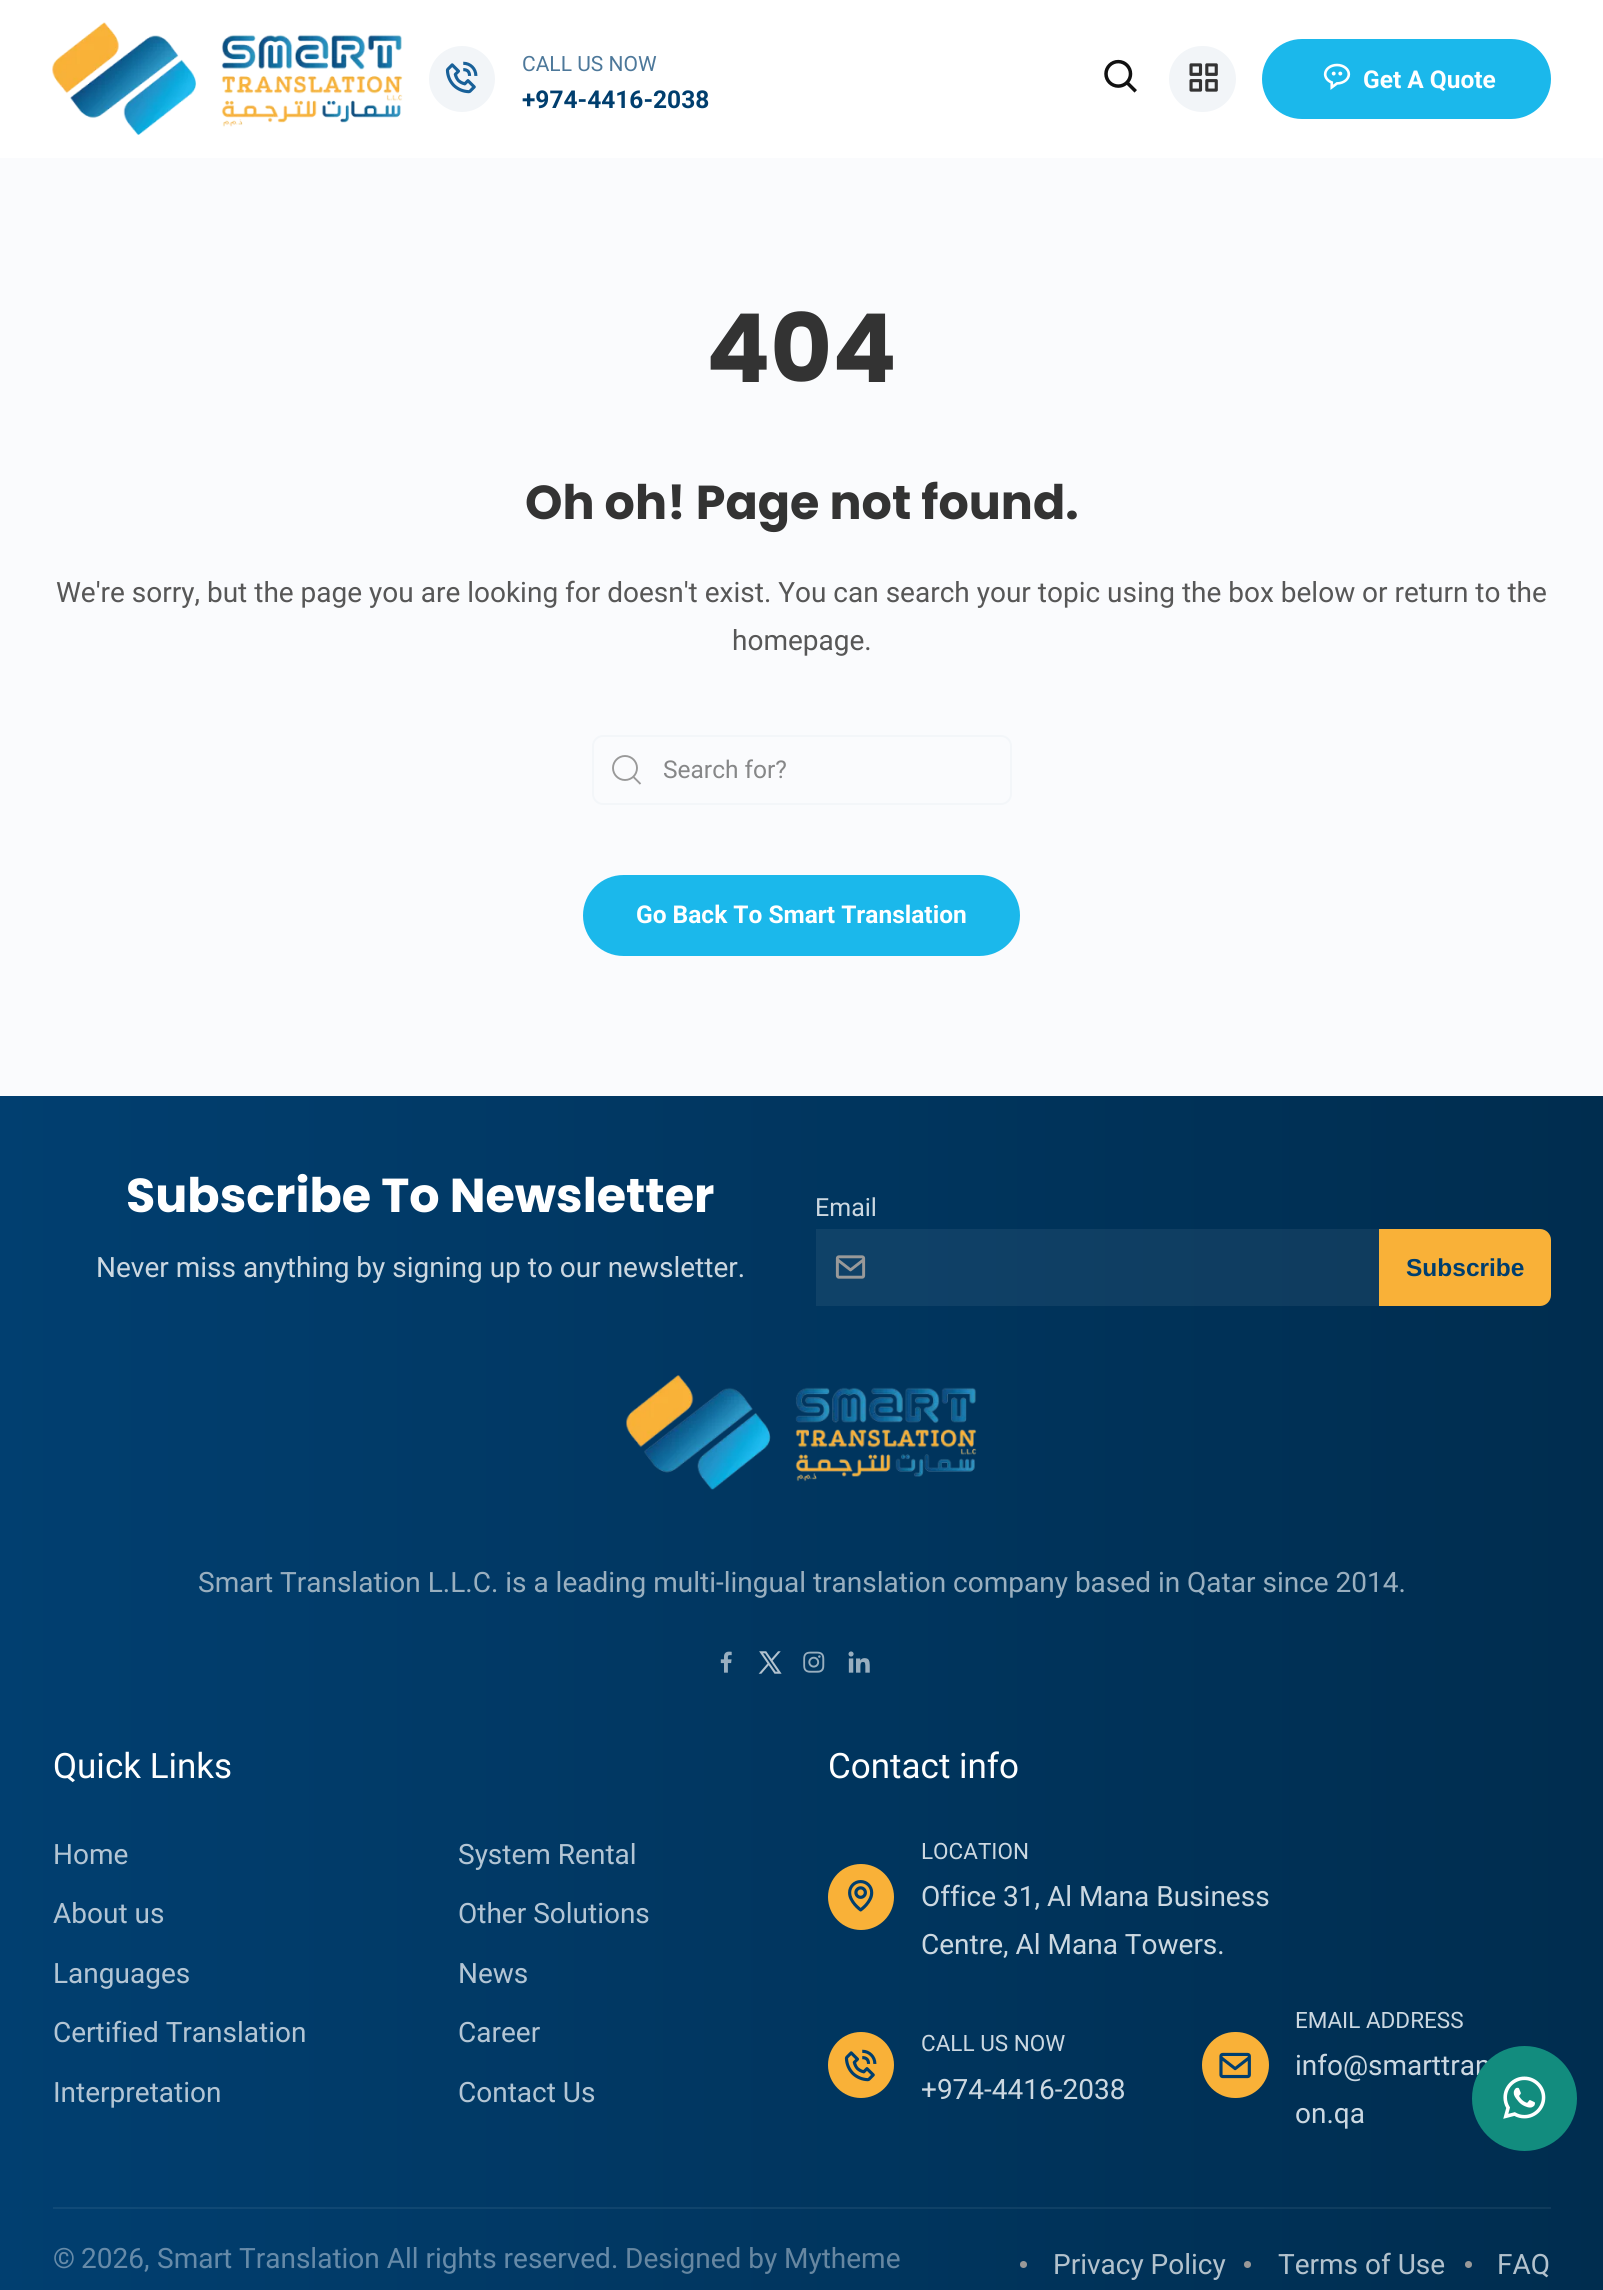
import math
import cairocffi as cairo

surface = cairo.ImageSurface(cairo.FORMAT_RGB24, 1603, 2290)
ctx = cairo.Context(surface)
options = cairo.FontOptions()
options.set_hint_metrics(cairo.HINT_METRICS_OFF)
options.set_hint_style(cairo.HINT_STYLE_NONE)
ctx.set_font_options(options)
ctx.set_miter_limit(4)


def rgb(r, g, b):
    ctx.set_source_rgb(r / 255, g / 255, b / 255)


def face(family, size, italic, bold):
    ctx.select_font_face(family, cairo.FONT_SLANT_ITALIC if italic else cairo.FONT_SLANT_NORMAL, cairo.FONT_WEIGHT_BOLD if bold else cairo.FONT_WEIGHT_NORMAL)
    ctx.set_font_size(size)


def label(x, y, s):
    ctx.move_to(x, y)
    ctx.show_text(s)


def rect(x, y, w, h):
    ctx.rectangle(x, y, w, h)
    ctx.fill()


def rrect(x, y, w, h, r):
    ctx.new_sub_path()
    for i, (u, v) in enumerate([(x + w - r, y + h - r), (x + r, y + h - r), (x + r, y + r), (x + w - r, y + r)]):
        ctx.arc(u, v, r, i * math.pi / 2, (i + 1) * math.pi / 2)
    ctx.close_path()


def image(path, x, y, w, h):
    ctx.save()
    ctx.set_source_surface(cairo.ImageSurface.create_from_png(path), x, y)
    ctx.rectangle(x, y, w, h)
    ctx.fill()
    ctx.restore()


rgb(250, 251, 253)
ctx.paint()
rgb(255, 255, 255)
rect(0, 0, 1603, 158)
image('image0.png', 52, 22, 351, 113)
rgb(242, 245, 248)
ctx.arc(462, 79, 33, 0, 2 * math.pi)
ctx.fill()
image('image1.png', 445, 61, 33, 33)
face('Roboto', 21, 0, 0)
rgb(77, 120, 154)
label(522, 71, 'CALL US NOW')
face('Roboto', 24.5, 0, 1)
rgb(0, 62, 110)
label(522, 108, '+974-4416-2038')
image('image2.png', 1104, 59, 33, 34)
rgb(242, 245, 248)
rrect(1169, 46, 67, 66, 33)
ctx.fill()
image('image3.png', 1189, 63, 29, 29)
rgb(27, 184, 235)
rrect(1262, 39, 289, 80, 40)
ctx.fill()
image('image4.png', 1323, 63, 28, 27)
rgb(255, 255, 255)
label(1363, 88, 'Get A Quote')
face('Poppins', 95, 0, 1)
rgb(51, 51, 51)
label(706, 382, '404')
face('Poppins', 47.6, 0, 1)
label(525, 519, 'Oh oh! Page not found.')
face('Roboto', 28, 0, 0)
rgb(87, 87, 87)
label(56, 602, 'We\'re sorry, but the page you are looking for doesn\'t exist. You can search your topic using the box below or return to the')
label(732, 650, 'homepage.')
rrect(593, 736, 418, 68, 10)
rgb(243, 246, 249)
ctx.stroke()
ctx.arc(625, 768, 12, 0, 2 * math.pi)
rgb(153, 153, 153)
ctx.set_line_width(1.9)
ctx.stroke()
ctx.new_path()
ctx.move_to(633.5, 777)
ctx.line_to(640.5, 784)
ctx.close_path()
ctx.stroke()
face('Roboto', 24.5, 0, 0)
rgb(134, 135, 136)
label(663, 778, 'Search for?')
rgb(27, 184, 235)
rrect(583, 875, 437, 81, 40.5)
ctx.fill()
face('Roboto', 24.5, 0, 1)
rgb(255, 255, 255)
label(636, 923, 'Go Back To Smart Translation')
gradient = cairo.LinearGradient(0, 1704, 1603, 1704)
gradient.add_color_stop_rgba(0, 0.004, 0.247, 0.439, 1)
gradient.add_color_stop_rgba(1, 0, 0.176, 0.31, 1)
ctx.set_source(gradient)
rect(0, 1096, 1603, 1194)
gradient = cairo.LinearGradient(0, 1704, 1603, 1704)
gradient.add_color_stop_rgba(0, 0.063, 0.294, 0.475, 1)
gradient.add_color_stop_rgba(1, 0.059, 0.227, 0.353, 1)
ctx.set_source(gradient)
rect(53, 2207, 1498, 2)
face('Poppins', 47.6, 0, 1)
rgb(255, 255, 255)
label(126, 1212, 'Subscribe To Newsletter')
face('Roboto', 28, 0, 0)
rgb(204, 216, 225)
label(96, 1277, 'Never miss anything by signing up to our newsletter.')
face('Roboto', 25, 0, 0)
label(815, 1216, 'Email')
ctx.set_source_rgba(1, 1, 1, 0.06)
rect(816, 1229, 563, 77)
image('image5.png', 835, 1255, 31, 24)
rgb(249, 177, 56)
ctx.new_path()
ctx.move_to(1379, 1229)
ctx.line_to(1540, 1229)
ctx.curve_to(1546, 1229, 1551, 1234, 1551, 1240)
ctx.line_to(1551, 1295)
ctx.curve_to(1551, 1301, 1546, 1306, 1540, 1306)
ctx.line_to(1379, 1306)
ctx.close_path()
ctx.fill()
face('Liberation Sans', 24.5, 0, 1)
rgb(0, 62, 110)
label(1406, 1276, 'Subscribe')
image('image6.png', 626, 1375, 351, 115)
face('Roboto', 28, 0, 0)
rgb(153, 175, 191)
label(198, 1592, 'Smart Translation L.L.C. is a leading multi-lingual translation company based in Qatar since 2014.')
image('image7.png', 720, 1651, 12, 22)
image('image8.png', 758, 1651, 24, 23)
image('image9.png', 803, 1651, 22, 22)
image('image10.png', 848, 1651, 22, 22)
face('Roboto', 35, 0, 0)
rgb(255, 255, 255)
label(53, 1778, 'Quick Links')
face('Roboto', 28, 0, 0)
rgb(179, 197, 212)
label(53, 1864, 'Home')
label(458, 1864, 'System Rental')
label(53, 1923, 'About us')
label(458, 1923, 'Other Solutions')
label(53, 1983, 'Languages')
label(458, 1983, 'News')
label(53, 2042, 'Certified Translation')
label(458, 2042, 'Career')
label(53, 2102, 'Interpretation')
label(458, 2102, 'Contact Us')
face('Roboto', 35, 0, 0)
rgb(255, 255, 255)
label(828, 1778, 'Contact info')
rgb(249, 177, 56)
ctx.new_path()
ctx.arc(861, 1897, 33, 0, 2 * math.pi)
ctx.fill()
image('image11.png', 848, 1880, 26, 32)
face('Roboto', 22.5, 0, 0)
rgb(204, 216, 225)
label(921, 1859, 'LOCATION')
face('Roboto', 28, 0, 0)
label(921, 1906, 'Office 31, Al Mana Business')
label(921, 1954, 'Centre, Al Mana Towers.')
rgb(249, 177, 56)
ctx.new_path()
ctx.arc(861, 2065, 33, 0, 2 * math.pi)
ctx.fill()
image('image12.png', 844, 2049, 33, 33)
face('Roboto', 22.5, 0, 0)
rgb(204, 216, 225)
label(921, 2051, 'CALL US NOW')
face('Roboto', 28, 0, 0)
label(921, 2099, '+974-4416-2038')
rgb(249, 177, 56)
rrect(1202, 2032, 67, 66, 33)
ctx.fill()
image('image13.png', 1219, 2052, 32, 27)
face('Roboto', 22.5, 0, 0)
rgb(204, 216, 225)
label(1295, 2028, 'EMAIL ADDRESS')
face('Roboto', 28, 0, 0)
label(1295, 2075, 'info@smarttran')
label(1295, 2123, 'on.qa')
rgb(103, 139, 169)
label(53, 2268, '©')
label(81, 2268, '2026,')
label(157, 2268, 'Smart Translation All rights reserved.')
rgb(103, 135, 161)
label(625, 2268, 'Designed by')
label(784, 2268, 'Mytheme')
rgb(153, 153, 153)
ctx.new_path()
ctx.arc(1023.5, 2264.5, 3.5, 0, 2 * math.pi)
ctx.fill()
rgb(179, 194, 205)
label(1053, 2274, 'Privacy Policy')
rgb(153, 153, 153)
ctx.new_path()
ctx.arc(1247.5, 2264.5, 3.5, 0, 2 * math.pi)
ctx.fill()
rgb(179, 194, 205)
label(1278, 2274, 'Terms of Use')
rgb(153, 153, 153)
ctx.new_path()
ctx.arc(1468.5, 2264.5, 3.5, 0, 2 * math.pi)
ctx.fill()
rgb(179, 194, 205)
label(1497, 2274, 'FAQ')
rgb(18, 140, 126)
ctx.new_path()
ctx.arc(1524.5, 2098.5, 52.5, 0, 2 * math.pi)
ctx.fill()
image('image14.png', 1503, 2076, 43, 43)
surface.write_to_png('render.png')
